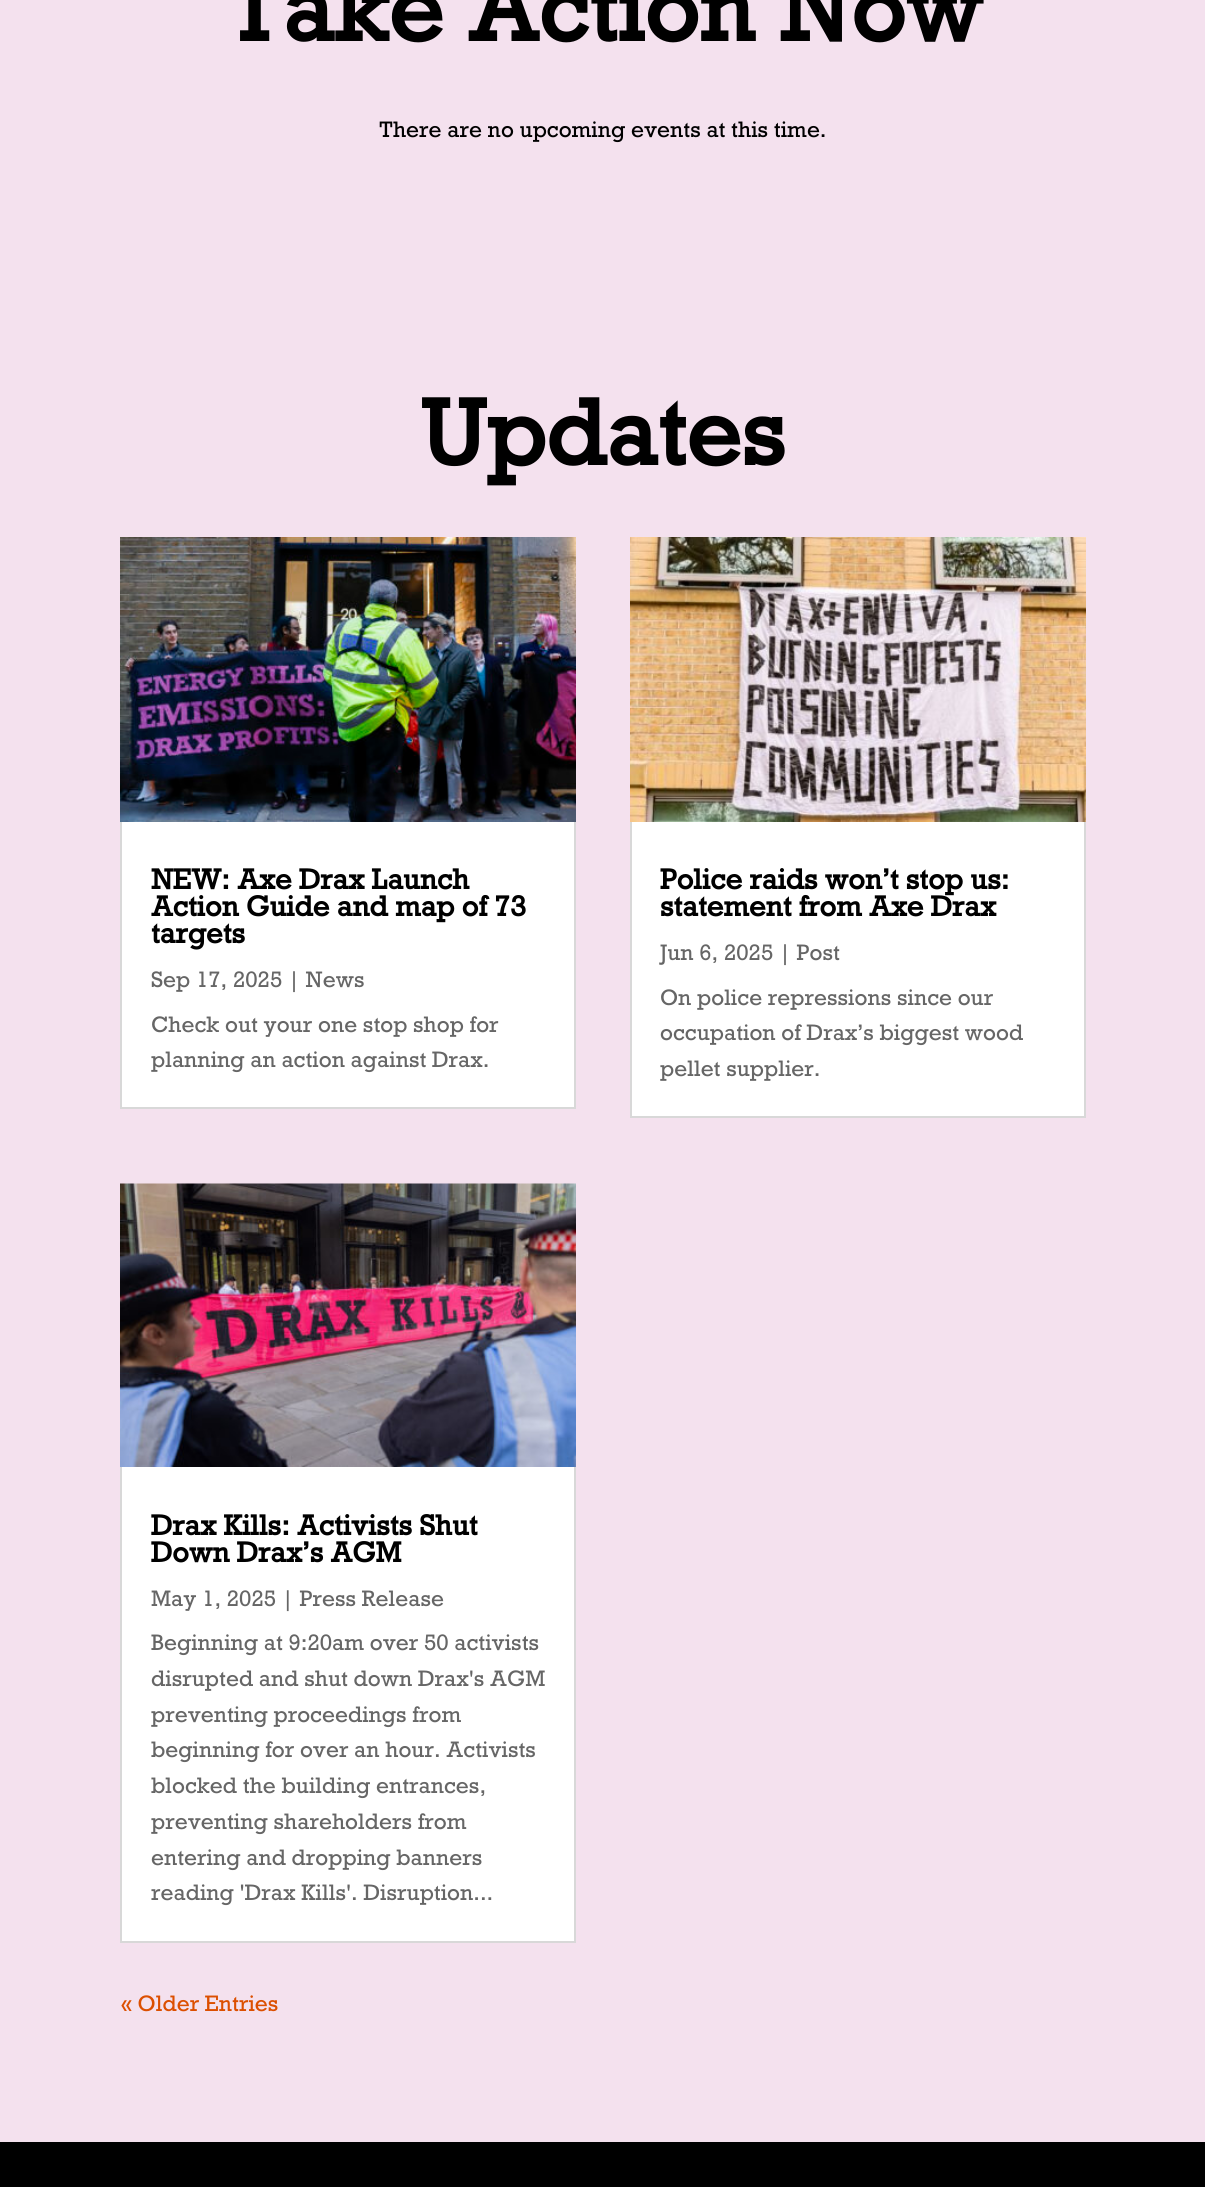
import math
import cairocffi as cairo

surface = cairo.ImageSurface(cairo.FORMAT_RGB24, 1205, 2187)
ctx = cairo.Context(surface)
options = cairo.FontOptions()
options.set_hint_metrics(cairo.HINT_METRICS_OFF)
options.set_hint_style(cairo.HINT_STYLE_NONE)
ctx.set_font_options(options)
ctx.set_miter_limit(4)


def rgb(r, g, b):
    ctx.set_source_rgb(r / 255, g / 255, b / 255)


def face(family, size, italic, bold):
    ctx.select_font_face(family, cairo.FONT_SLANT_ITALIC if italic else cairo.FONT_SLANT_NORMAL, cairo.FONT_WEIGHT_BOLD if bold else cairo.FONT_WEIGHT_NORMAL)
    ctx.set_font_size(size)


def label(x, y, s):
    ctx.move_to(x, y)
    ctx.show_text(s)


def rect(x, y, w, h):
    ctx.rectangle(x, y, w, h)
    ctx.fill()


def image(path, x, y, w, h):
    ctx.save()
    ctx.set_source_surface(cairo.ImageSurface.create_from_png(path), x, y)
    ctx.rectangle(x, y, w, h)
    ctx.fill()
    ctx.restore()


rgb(244, 225, 238)
ctx.paint()
face('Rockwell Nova', 88.5, 0, 1)
rgb(0, 0, 0)
label(224, 41, 'Take Action Now')
face('Rockwell Nova', 21, 0, 0)
label(379, 137, 'There are no upcoming events at this time.')
face('Rockwell Nova', 88.5, 0, 1)
label(420, 465, 'Updates')
rgb(255, 255, 255)
rect(122, 822, 452, 285)
ctx.rectangle(121, 538, 454, 570)
rgb(216, 216, 216)
ctx.stroke()
image('image0.png', 120, 537, 456, 285)
face('Rockwell Nova', 27, 0, 1)
rgb(0, 0, 0)
label(151, 889, 'NEW: Axe Drax Launch')
label(151, 916, 'Action Guide and map of 73')
label(151, 943, 'targets')
face('Rockwell Nova', 21, 0, 0)
rgb(102, 102, 102)
label(151, 987, 'Sep 17, 2025 | News')
label(151, 1032, 'Check out your one stop shop for')
label(151, 1067, 'planning an action against Drax.')
rgb(255, 255, 255)
rect(122, 1467, 452, 474)
ctx.rectangle(121, 1185, 454, 757)
rgb(216, 216, 216)
ctx.stroke()
image('image1.png', 120, 1183, 456, 284)
face('Rockwell Nova', 27, 0, 1)
rgb(0, 0, 0)
label(151, 1535, 'Drax Kills: Activists Shut')
label(151, 1562, 'Down Drax’s AGM')
face('Rockwell Nova', 21, 0, 0)
rgb(102, 102, 102)
label(151, 1606, 'May 1, 2025 | Press Release')
label(151, 1650, 'Beginning at 9:20am over 50 activists')
label(151, 1686, 'disrupted and shut down Drax\'s AGM')
label(151, 1722, 'preventing proceedings from')
label(151, 1757, 'beginning for over an hour. Activists')
label(151, 1793, 'blocked the building entrances,')
label(151, 1829, 'preventing shareholders from')
label(151, 1865, 'entering and dropping banners')
label(151, 1900, 'reading \'Drax Kills\'. Disruption...')
rgb(255, 255, 255)
rect(632, 822, 452, 294)
ctx.rectangle(631, 538, 454, 579)
rgb(216, 216, 216)
ctx.stroke()
image('image2.png', 630, 537, 456, 285)
face('Rockwell Nova', 27, 0, 1)
rgb(0, 0, 0)
label(660, 889, 'Police raids won’t stop us:')
label(660, 916, 'statement from Axe Drax')
face('Rockwell Nova', 21, 0, 0)
rgb(102, 102, 102)
label(660, 960, 'Jun 6, 2025 | Post')
label(660, 1005, 'On police repressions since our')
label(660, 1040, 'occupation of Drax’s biggest wood')
label(660, 1076, 'pellet supplier.')
rgb(220, 79, 0)
label(121, 2011, '« Older Entries')
rgb(0, 0, 0)
rect(0, 2142, 1205, 45)
surface.write_to_png('render.png')
